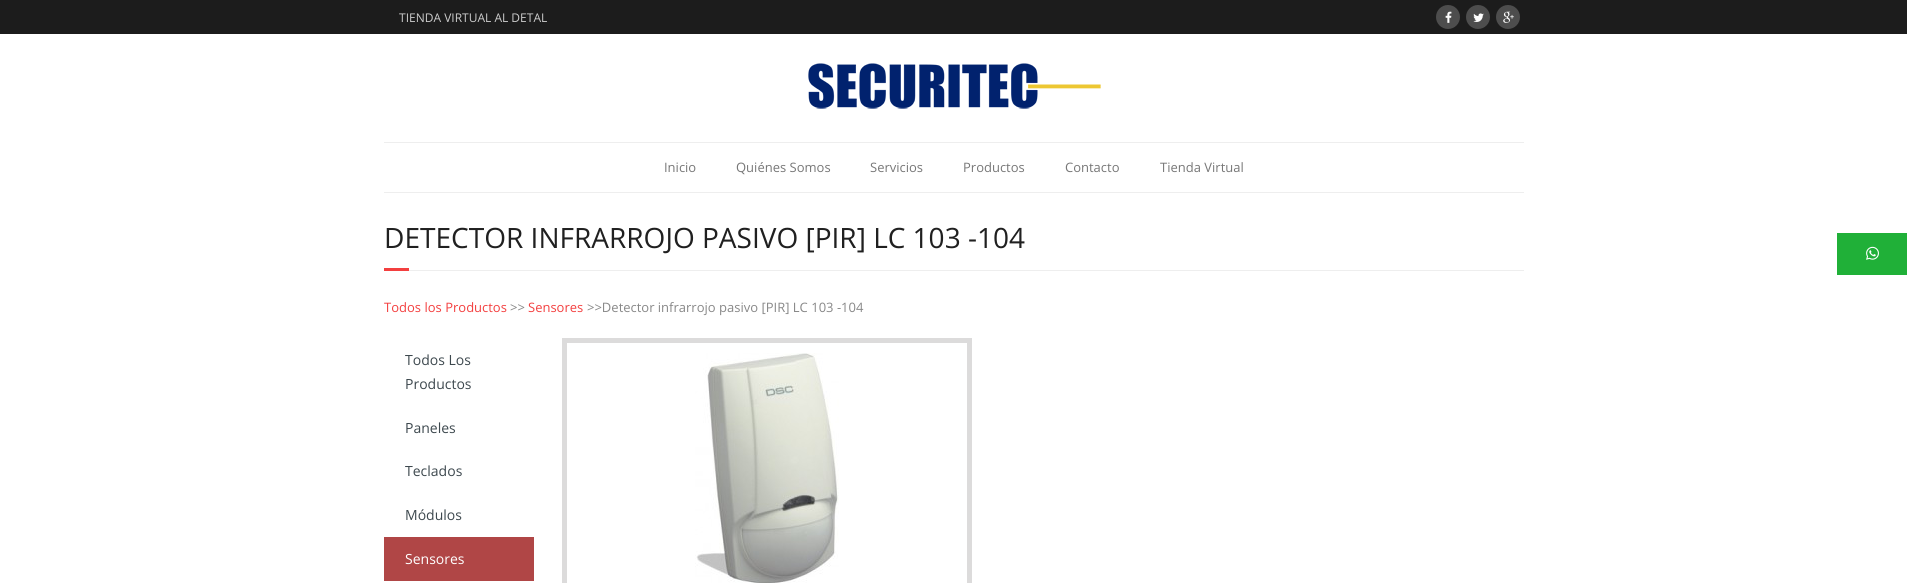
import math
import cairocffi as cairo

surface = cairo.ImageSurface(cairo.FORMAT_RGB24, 1907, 583)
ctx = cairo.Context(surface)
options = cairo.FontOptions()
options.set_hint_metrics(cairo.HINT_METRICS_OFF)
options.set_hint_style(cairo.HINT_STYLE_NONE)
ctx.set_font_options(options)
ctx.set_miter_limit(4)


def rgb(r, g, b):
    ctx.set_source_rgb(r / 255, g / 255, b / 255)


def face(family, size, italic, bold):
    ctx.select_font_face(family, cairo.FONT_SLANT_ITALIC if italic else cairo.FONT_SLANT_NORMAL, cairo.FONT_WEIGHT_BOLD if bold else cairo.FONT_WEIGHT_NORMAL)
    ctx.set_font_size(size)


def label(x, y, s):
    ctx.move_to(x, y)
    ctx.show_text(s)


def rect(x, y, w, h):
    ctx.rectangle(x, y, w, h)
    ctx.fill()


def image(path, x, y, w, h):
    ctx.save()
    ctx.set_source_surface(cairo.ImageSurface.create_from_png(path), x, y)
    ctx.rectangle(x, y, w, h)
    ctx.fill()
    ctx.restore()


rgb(255, 255, 255)
ctx.paint()
rgb(28, 28, 28)
rect(0, 0, 1907, 34)
face('Open Sans', 12, 0, 0)
rgb(204, 204, 204)
label(399, 22, 'TIENDA VIRTUAL AL DETAL')
rgb(77, 77, 77)
ctx.new_path()
ctx.arc(1448, 17, 12, 0, 2 * math.pi)
ctx.fill()
image('image0.png', 1445, 11, 7, 12)
ctx.arc(1478, 17, 12, 0, 2 * math.pi)
ctx.fill()
image('image1.png', 1473, 13, 11, 9)
ctx.arc(1508, 17, 12, 0, 2 * math.pi)
ctx.fill()
image('image2.png', 1503, 11, 11, 12)
image('image3.png', 808, 63, 293, 46)
rgb(238, 238, 238)
rect(384, 142, 1140, 1)
rect(384, 192, 1140, 1)
face('Open Sans', 13, 0, 0)
rgb(119, 119, 119)
label(664, 172, 'Inicio')
label(736, 172, 'Quiénes Somos')
label(870, 172, 'Servicios')
label(963, 172, 'Productos')
label(1065, 172, 'Contacto')
label(1160, 172, 'Tienda Virtual')
face('Open Sans', 28, 0, 0)
rgb(32, 32, 32)
label(384, 248, 'DETECTOR INFRARROJO PASIVO [PIR] LC 103 -104')
rgb(243, 63, 63)
rect(384, 268, 25, 3)
rgb(238, 238, 238)
rect(409, 270, 1115, 1)
face('Open Sans', 13, 0, 0)
rgb(243, 63, 63)
label(384, 312, 'Todos los Productos')
rgb(136, 136, 136)
label(510, 312, '>>')
rgb(243, 63, 63)
label(528, 312, 'Sensores')
rgb(136, 136, 136)
label(587, 312, '>>Detector infrarrojo pasivo [PIR] LC 103 -104')
face('Open Sans', 14, 0, 0)
rgb(61, 72, 78)
label(405, 365, 'Todos Los')
label(405, 389, 'Productos')
label(405, 433, 'Paneles')
label(405, 476, 'Teclados')
label(405, 520, 'Módulos')
rgb(176, 70, 70)
rect(384, 537, 150, 44)
rgb(255, 255, 255)
label(405, 564, 'Sensores')
ctx.rectangle(564.5, 340.5, 405, 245)
rgb(220, 219, 219)
ctx.set_line_width(5)
ctx.stroke()
image('image4.png', 695, 353, 144, 230)
rgb(32, 176, 56)
rect(1837, 233, 70, 42)
image('image5.png', 1866, 246, 13, 14)
surface.write_to_png('render.png')
